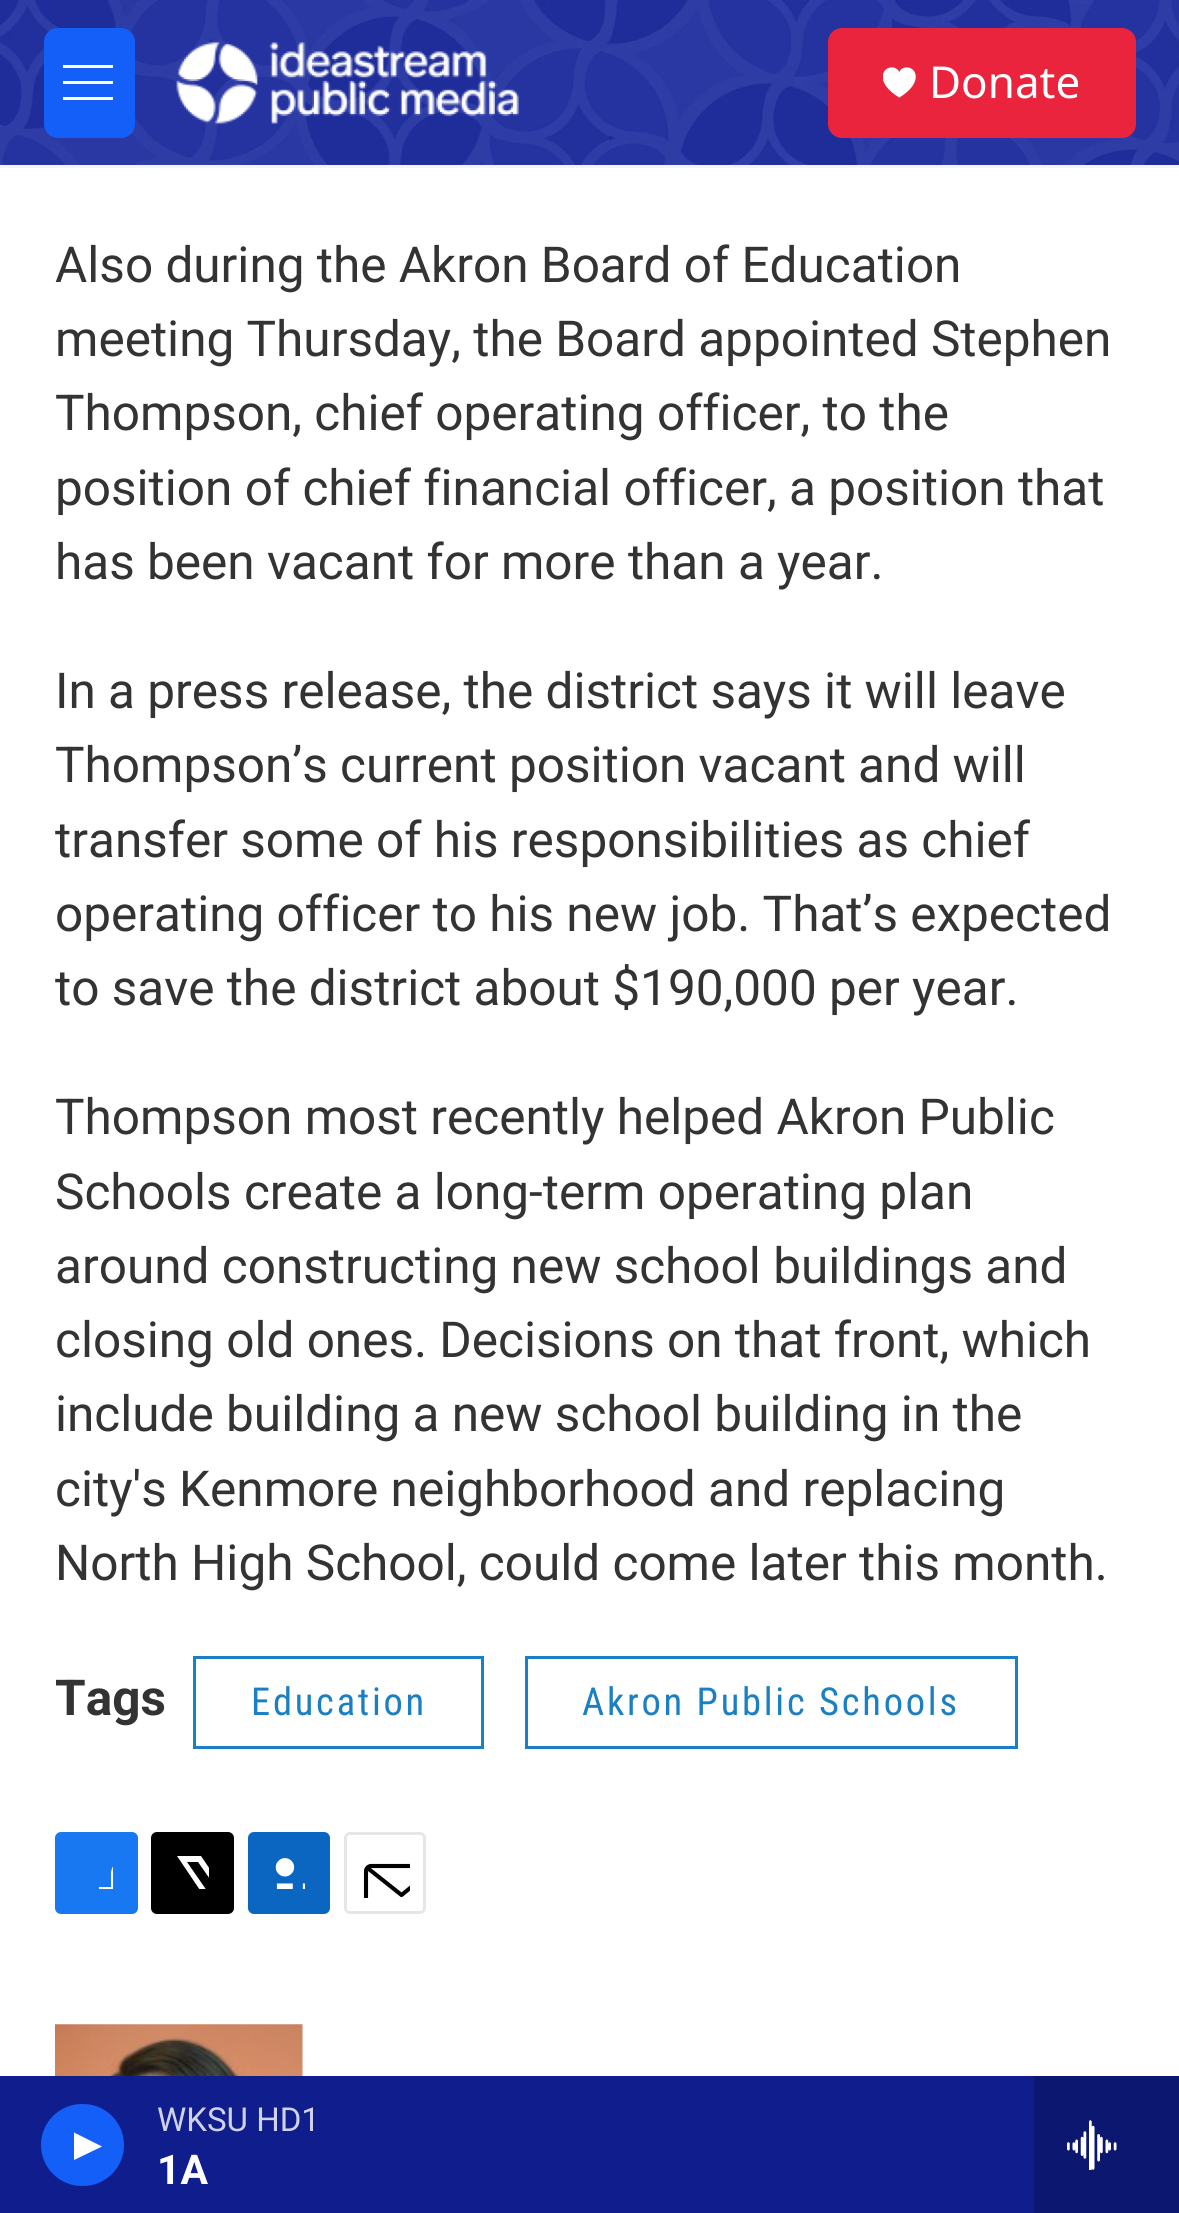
import math
import cairocffi as cairo

surface = cairo.ImageSurface(cairo.FORMAT_RGB24, 1179, 2213)
ctx = cairo.Context(surface)
options = cairo.FontOptions()
options.set_hint_metrics(cairo.HINT_METRICS_OFF)
options.set_hint_style(cairo.HINT_STYLE_NONE)
ctx.set_font_options(options)
ctx.set_miter_limit(4)


def rgb(r, g, b):
    ctx.set_source_rgb(r / 255, g / 255, b / 255)


def face(family, size, italic, bold):
    ctx.select_font_face(family, cairo.FONT_SLANT_ITALIC if italic else cairo.FONT_SLANT_NORMAL, cairo.FONT_WEIGHT_BOLD if bold else cairo.FONT_WEIGHT_NORMAL)
    ctx.set_font_size(size)


def label(x, y, s):
    ctx.move_to(x, y)
    ctx.show_text(s)


def tracked(x, y, s, letter, word):
    ctx.move_to(x, y)
    for ch in s:
        ctx.show_text(ch)
        ctx.rel_move_to(letter + word * (ch == ' '), 0)


def rect(x, y, w, h):
    ctx.rectangle(x, y, w, h)
    ctx.fill()


def rrect(x, y, w, h, r):
    ctx.new_sub_path()
    for i, (u, v) in enumerate([(x + w - r, y + h - r), (x + r, y + h - r), (x + r, y + r), (x + w - r, y + r)]):
        ctx.arc(u, v, r, i * math.pi / 2, (i + 1) * math.pi / 2)
    ctx.close_path()


def image(path, x, y, w, h):
    ctx.save()
    ctx.set_source_surface(cairo.ImageSurface.create_from_png(path), x, y)
    ctx.rectangle(x, y, w, h)
    ctx.fill()
    ctx.restore()


rgb(255, 255, 255)
ctx.paint()
rgb(245, 245, 245)
rect(0, 165, 1179, 3)
image('image0.png', 0, 0, 1179, 165)
rgb(20, 95, 248)
rrect(44, 28, 91, 110, 14)
ctx.fill()
rgb(255, 255, 255)
ctx.set_fill_rule(cairo.FILL_RULE_EVEN_ODD)
ctx.new_path()
ctx.move_to(63, 84)
ctx.line_to(63, 81)
ctx.line_to(113, 81)
ctx.line_to(113, 84)
ctx.close_path()
ctx.move_to(63, 68)
ctx.line_to(63, 65)
ctx.line_to(113, 65)
ctx.line_to(113, 68)
ctx.close_path()
ctx.move_to(63, 100)
ctx.line_to(63, 97)
ctx.line_to(113, 97)
ctx.line_to(113, 100)
ctx.close_path()
ctx.fill()
image('image1.png', 176, 42, 343, 83)
rgb(234, 36, 60)
rrect(828, 28, 308, 110, 14)
ctx.fill()
image('image2.png', 883, 67, 33, 31)
face('Noto Sans', 44, 0, 0)
rgb(255, 255, 255)
label(929, 98, 'Donate')
rgb(15, 30, 140)
rect(0, 2076, 1034, 137)
rgb(20, 95, 248)
rrect(41, 2104, 83, 82, 41)
ctx.fill()
rgb(255, 255, 255)
ctx.set_fill_rule(cairo.FILL_RULE_WINDING)
ctx.new_path()
ctx.move_to(74, 2132.5)
ctx.line_to(102, 2146.5)
ctx.line_to(74, 2160)
ctx.close_path()
ctx.fill()
face('Roboto', 33, 0, 0)
rgb(207, 210, 232)
label(157, 2131, 'WKSU HD1')
face('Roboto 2', 41, 0, 1)
rgb(255, 255, 255)
label(157, 2184, '1A')
rgb(12, 24, 112)
rect(1034, 2076, 145, 137)
image('image3.png', 1067, 2120, 50, 50)
face('Roboto', 49.5, 0, 0)
rgb(51, 51, 51)
label(55, 282, 'Also during the Akron Board of Education')
label(55, 356, 'meeting Thursday, the Board appointed Stephen')
label(55, 430, 'Thompson, chief operating officer, to the')
label(55, 505, 'position of chief financial officer, a position that')
label(55, 579, 'has been vacant for more than a year.')
label(55, 708, 'In a press release, the district says it will leave')
label(55, 782, 'Thompson’s current position vacant and will')
label(55, 857, 'transfer some of his responsibilities as chief')
label(55, 931, 'operating officer to his new job. That’s expected')
label(55, 1005, 'to save the district about $190,000 per year.')
label(55, 1134, 'Thompson most recently helped Akron Public')
label(55, 1209, 'Schools create a long-term operating plan')
label(55, 1283, 'around constructing new school buildings and')
label(55, 1357, 'closing old ones. Decisions on that front, which')
label(55, 1431, 'include building a new school building in the')
label(55, 1506, 'city\'s Kenmore neighborhood and replacing')
label(55, 1580, 'North High School, could come later this month.')
face('Roboto', 49.5, 0, 1)
label(55, 1715, 'Tags')
ctx.rectangle(194.5, 1657.5, 288, 90)
rgb(26, 127, 195)
ctx.set_line_width(3)
ctx.stroke()
face('Roboto Condensed', 38.5, 0, 0)
tracked(251, 1715, 'Education', 2.75, 0)
ctx.rectangle(526.5, 1657.5, 490, 90)
ctx.stroke()
tracked(582, 1715, 'Akron Public Schools', 2.75, 0)
rgb(23, 120, 242)
rrect(55, 1832, 83, 82, 6)
ctx.fill()
ctx.save()
ctx.rectangle(80, 1856, 33, 33)
ctx.clip()
rgb(255, 255, 255)
ctx.new_path()
ctx.move_to(125, 1914)
ctx.line_to(111, 1914)
ctx.line_to(111, 1901)
ctx.line_to(99, 1901)
ctx.line_to(99, 1887)
ctx.line_to(111, 1887)
ctx.line_to(111, 1872)
ctx.curve_to(114, 1858, 126, 1856, 138, 1858)
ctx.line_to(138, 1870)
ctx.curve_to(122, 1870, 125, 1874, 125, 1887)
ctx.line_to(138, 1887)
ctx.line_to(137, 1901)
ctx.line_to(125, 1901)
ctx.close_path()
ctx.fill()
ctx.restore()
rgb(0, 0, 0)
rrect(151, 1832, 83, 82, 6)
ctx.fill()
ctx.save()
ctx.rectangle(176, 1856, 33, 33)
ctx.clip()
rgb(255, 255, 255)
ctx.new_path()
ctx.move_to(225, 1891)
ctx.line_to(234, 1904)
ctx.curve_to(234, 1907, 234, 1910, 233, 1912)
ctx.line_to(198, 1862)
ctx.line_to(187, 1862)
ctx.line_to(223, 1914)
ctx.line_to(217, 1914)
ctx.line_to(212, 1907)
ctx.line_to(206, 1914)
ctx.line_to(198, 1914)
ctx.line_to(208, 1902)
ctx.line_to(177, 1856)
ctx.line_to(201, 1856)
ctx.line_to(222, 1887)
ctx.line_to(234, 1873)
ctx.line_to(234, 1880)
ctx.close_path()
ctx.fill()
ctx.restore()
rgb(10, 102, 193)
rrect(248, 1832, 82, 82, 6)
ctx.fill()
image('image4.png', 275, 1858, 30, 31)
rrect(345.5, 1833.5, 79, 79, 4.5)
rgb(230, 230, 230)
ctx.stroke()
ctx.save()
ctx.rectangle(360, 1848, 50, 50)
ctx.clip()
ctx.new_path()
ctx.move_to(437, 1908.5)
ctx.curve_to(437, 1911, 434.5, 1913.5, 432, 1913.5)
ctx.line_to(371, 1913.5)
ctx.curve_to(368.5, 1913.5, 366, 1911, 366, 1908.5)
ctx.line_to(366, 1871)
ctx.curve_to(366, 1868.5, 368.5, 1866, 371, 1866)
ctx.line_to(432, 1866)
ctx.curve_to(434.5, 1866, 437, 1868.5, 437, 1871)
ctx.close_path()
ctx.move_to(435, 1868)
ctx.line_to(401.5, 1895)
ctx.line_to(367.5, 1868)
rgb(0, 0, 0)
ctx.set_line_width(4.1)
ctx.set_line_cap(cairo.LINE_CAP_ROUND)
ctx.set_line_join(cairo.LINE_JOIN_ROUND)
ctx.stroke()
ctx.restore()
image('image5.png', 55, 2024, 248, 52)
surface.write_to_png('render.png')
